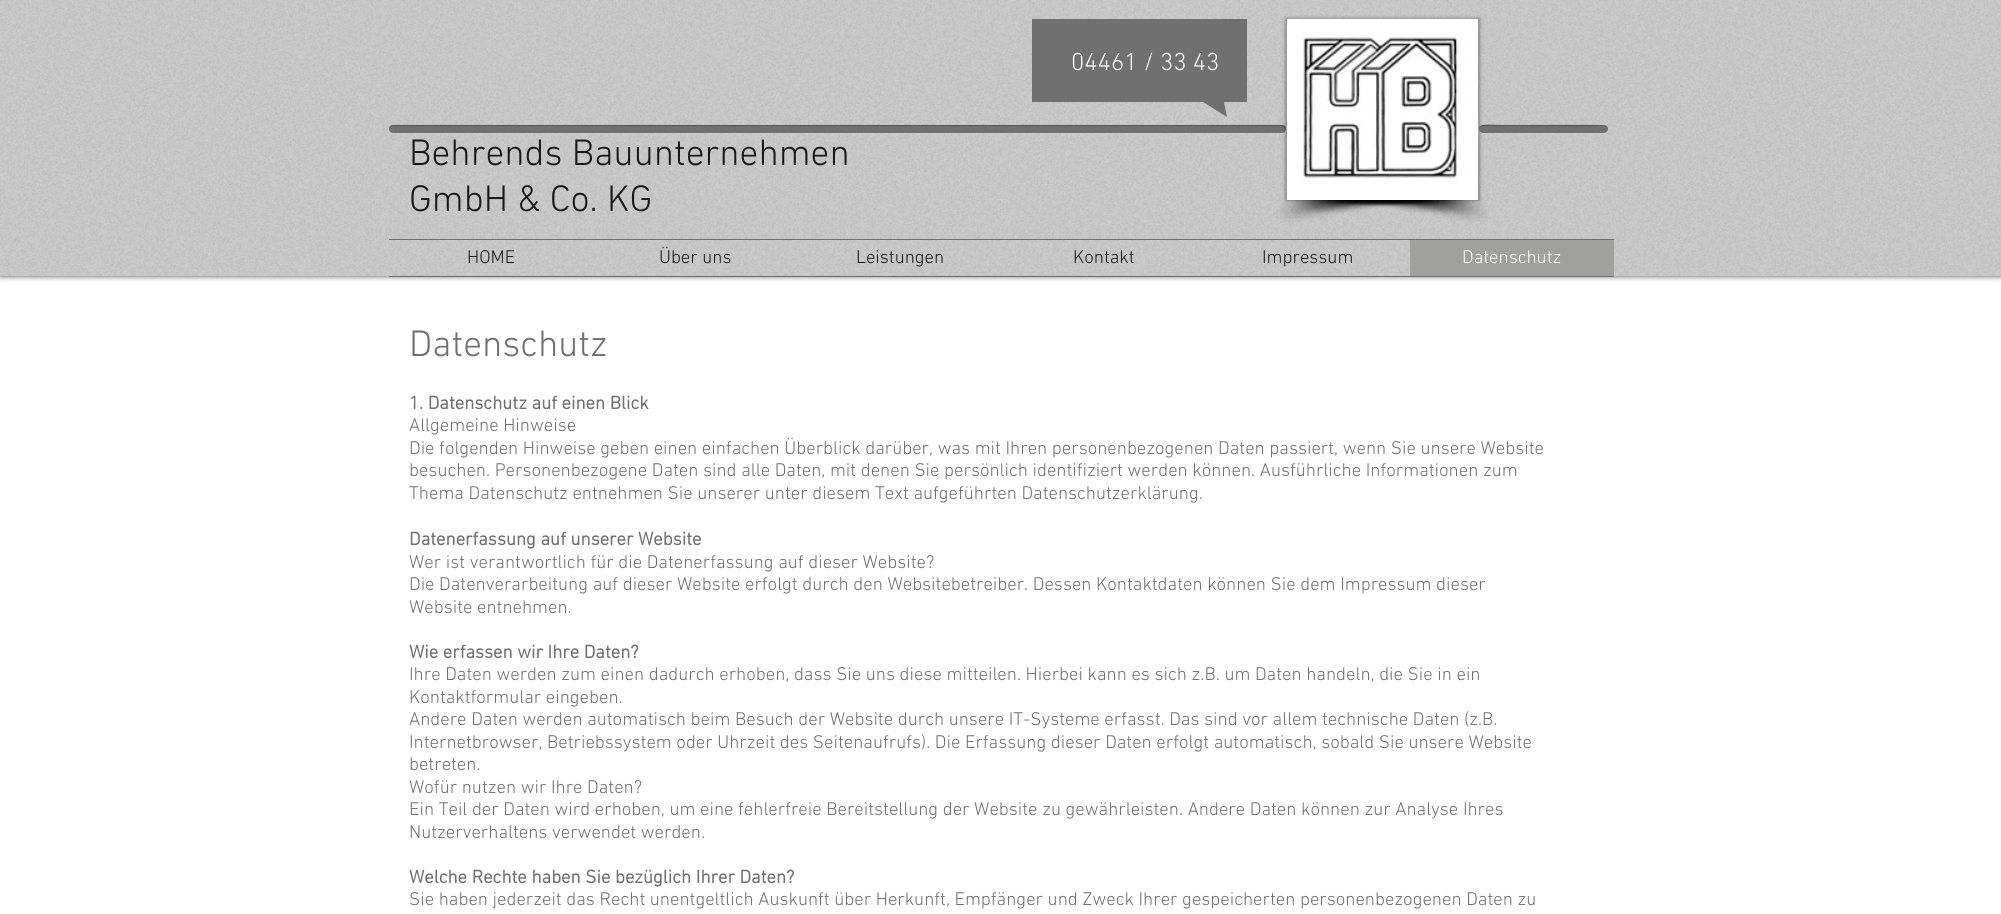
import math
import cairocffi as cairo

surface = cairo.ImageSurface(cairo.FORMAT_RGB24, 2001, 914)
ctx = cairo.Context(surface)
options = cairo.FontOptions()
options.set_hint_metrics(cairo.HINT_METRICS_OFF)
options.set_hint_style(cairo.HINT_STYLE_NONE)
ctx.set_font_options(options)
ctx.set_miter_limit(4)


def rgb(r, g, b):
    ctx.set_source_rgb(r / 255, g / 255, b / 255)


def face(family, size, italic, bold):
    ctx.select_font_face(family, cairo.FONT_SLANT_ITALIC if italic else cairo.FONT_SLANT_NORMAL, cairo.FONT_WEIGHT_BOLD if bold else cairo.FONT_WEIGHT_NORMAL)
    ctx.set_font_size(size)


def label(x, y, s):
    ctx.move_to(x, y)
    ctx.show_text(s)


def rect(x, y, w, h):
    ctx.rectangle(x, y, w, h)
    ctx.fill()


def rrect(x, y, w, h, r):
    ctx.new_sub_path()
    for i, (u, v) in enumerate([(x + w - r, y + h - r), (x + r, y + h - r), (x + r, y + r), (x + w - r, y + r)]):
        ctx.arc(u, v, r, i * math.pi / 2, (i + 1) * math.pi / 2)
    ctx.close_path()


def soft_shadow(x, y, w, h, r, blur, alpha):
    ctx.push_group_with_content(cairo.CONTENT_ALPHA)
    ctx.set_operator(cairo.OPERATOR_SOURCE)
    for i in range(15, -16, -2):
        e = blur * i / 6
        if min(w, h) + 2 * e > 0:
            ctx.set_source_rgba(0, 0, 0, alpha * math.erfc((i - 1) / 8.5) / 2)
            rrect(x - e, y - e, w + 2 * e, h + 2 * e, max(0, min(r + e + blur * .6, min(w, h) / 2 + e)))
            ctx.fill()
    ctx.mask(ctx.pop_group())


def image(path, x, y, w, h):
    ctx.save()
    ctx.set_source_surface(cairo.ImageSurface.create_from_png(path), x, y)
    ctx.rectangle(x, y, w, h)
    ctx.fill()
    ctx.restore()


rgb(255, 255, 255)
ctx.paint()
rgb(0, 0, 0)
soft_shadow(0, 0, 2001, 276, 0, 3, 0.7)
rgb(203, 203, 203)
rect(0, 0, 2001, 276)
image('image0.png', 0, 0, 2001, 276)
rgb(112, 112, 112)
ctx.new_path()
ctx.move_to(1247, 19)
ctx.line_to(1032, 19)
ctx.line_to(1032, 102)
ctx.line_to(1203, 102)
ctx.line_to(1227, 117)
ctx.line_to(1224, 102)
ctx.line_to(1247, 102)
ctx.close_path()
ctx.fill()
ctx.set_source_rgba(1, 1, 1, 0.1)
ctx.new_path()
ctx.move_to(389, 130)
ctx.curve_to(389, 132, 391, 134, 393, 134)
ctx.line_to(1282, 134)
ctx.curve_to(1284, 134, 1286, 132, 1286, 130)
ctx.curve_to(1285, 132, 1284, 132, 1282, 132)
ctx.line_to(392, 132)
ctx.curve_to(391, 132, 390, 132, 389, 130)
ctx.close_path()
ctx.fill()
rgb(112, 112, 112)
rrect(389, 125, 897, 8, 4)
ctx.fill()
ctx.set_source_rgba(0, 0, 0, 0.25)
ctx.new_path()
ctx.move_to(392, 126)
ctx.line_to(1282, 126)
ctx.curve_to(1284, 126, 1286, 128, 1286, 129)
ctx.line_to(1286, 128)
ctx.curve_to(1286, 126, 1284, 125, 1282, 125)
ctx.line_to(393, 125)
ctx.curve_to(391, 125, 390, 126, 389, 127)
ctx.line_to(389, 129)
ctx.curve_to(389, 128, 390, 126, 392, 126)
ctx.close_path()
ctx.fill()
rgb(0, 0, 0)
soft_shadow(1286, 19, 193, 181, 0, 2, 0.5)
rgb(23, 23, 23)
rect(1286, 19, 193, 181)
image('image1.png', 1286, 18, 193, 182)
image('image2.png', 1276, 200, 185, 22)
image('image3.png', 1320, 200, 169, 22)
face('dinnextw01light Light', 25, 0, 0)
rgb(255, 255, 255)
label(1071, 70, '04461 / 33 43')
ctx.set_source_rgba(1, 1, 1, 0.1)
ctx.new_path()
ctx.move_to(1479, 130)
ctx.line_to(1480, 133)
ctx.line_to(1483, 134)
ctx.line_to(1606, 134)
ctx.curve_to(1608, 133, 1609, 130, 1607, 128)
ctx.line_to(1607, 131)
ctx.curve_to(1606, 132, 1605, 132, 1604, 132)
ctx.line_to(1482, 132)
ctx.line_to(1480, 132)
ctx.close_path()
ctx.fill()
rgb(112, 112, 112)
rrect(1479, 125, 129, 8, 4)
ctx.fill()
ctx.set_source_rgba(0, 0, 0, 0.25)
ctx.new_path()
ctx.move_to(1482, 126)
ctx.line_to(1604, 126)
ctx.line_to(1607, 127)
ctx.line_to(1608, 130)
ctx.curve_to(1608, 128, 1607, 127, 1606, 126)
ctx.curve_to(1604, 124, 1532, 125, 1523, 125)
ctx.line_to(1503, 125)
ctx.curve_to(1493, 125, 1478, 122, 1479, 129)
ctx.curve_to(1479, 128, 1480, 126, 1482, 126)
ctx.close_path()
ctx.fill()
face('dinnextw01light Light', 37.5, 0, 0)
rgb(23, 23, 23)
label(409, 165, 'Behrends Bauunternehmen')
label(409, 211, 'GmbH & Co. KG')
rgb(112, 112, 112)
rect(389, 239, 1225, 1)
rect(389, 276, 1225, 1)
face('dinnextw01light Light', 18.75, 0, 0)
rgb(23, 23, 23)
label(467, 263, 'HOME')
label(659, 263, 'Über uns')
label(856, 263, 'Leistungen')
label(1073, 263, 'Kontakt')
label(1262, 263, 'Impressum')
rgb(160, 160, 159)
rect(1410, 240, 204, 36)
rgb(255, 255, 255)
label(1462, 263, 'Datenschutz')
face('dinnextw01light Light', 37.5, 0, 0)
rgb(112, 112, 112)
label(409, 356, 'Datenschutz')
face('dinnextw01light', 18.75, 0, 1)
label(409, 409, '1. Datenschutz auf einen Blick')
face('dinnextw01light Light', 18.75, 0, 0)
label(409, 431, 'Allgemeine Hinweise')
label(409, 454, 'Die folgenden Hinweise geben einen einfachen Überblick darüber, was mit Ihren personenbezogenen Daten passiert, wenn Sie unsere Website')
label(409, 476, 'besuchen. Personenbezogene Daten sind alle Daten, mit denen Sie persönlich identifiziert werden können. Ausführliche Informationen zum')
label(409, 499, 'Thema Datenschutz entnehmen Sie unserer unter diesem Text aufgeführten Datenschutzerklärung.')
face('dinnextw01light', 18.75, 0, 1)
label(409, 545, 'Datenerfassung auf unserer Website')
face('dinnextw01light Light', 18.75, 0, 0)
label(409, 568, 'Wer ist verantwortlich für die Datenerfassung auf dieser Website?')
label(409, 590, 'Die Datenverarbeitung auf dieser Website erfolgt durch den Websitebetreiber. Dessen Kontaktdaten können Sie dem Impressum dieser')
label(409, 613, 'Website entnehmen.')
face('dinnextw01light', 18.75, 0, 1)
label(409, 658, 'Wie erfassen wir Ihre Daten?')
face('dinnextw01light Light', 18.75, 0, 0)
label(409, 680, 'Ihre Daten werden zum einen dadurch erhoben, dass Sie uns diese mitteilen. Hierbei kann es sich z.B. um Daten handeln, die Sie in ein')
label(409, 703, 'Kontaktformular eingeben.')
label(409, 725, 'Andere Daten werden automatisch beim Besuch der Website durch unsere IT-Systeme erfasst. Das sind vor allem technische Daten (z.B.')
label(409, 748, 'Internetbrowser, Betriebssystem oder Uhrzeit des Seitenaufrufs). Die Erfassung dieser Daten erfolgt automatisch, sobald Sie unsere Website')
label(409, 770, 'betreten.')
label(409, 793, 'Wofür nutzen wir Ihre Daten?')
label(409, 815, 'Ein Teil der Daten wird erhoben, um eine fehlerfreie Bereitstellung der Website zu gewährleisten. Andere Daten können zur Analyse Ihres')
label(409, 838, 'Nutzerverhaltens verwendet werden.')
face('dinnextw01light', 18.75, 0, 1)
label(409, 883, 'Welche Rechte haben Sie bezüglich Ihrer Daten?')
face('dinnextw01light Light', 18.75, 0, 0)
label(409, 905, 'Sie haben jederzeit das Recht unentgeltlich Auskunft über Herkunft, Empfänger und Zweck Ihrer gespeicherten personenbezogenen Daten zu')
surface.write_to_png('render.png')
